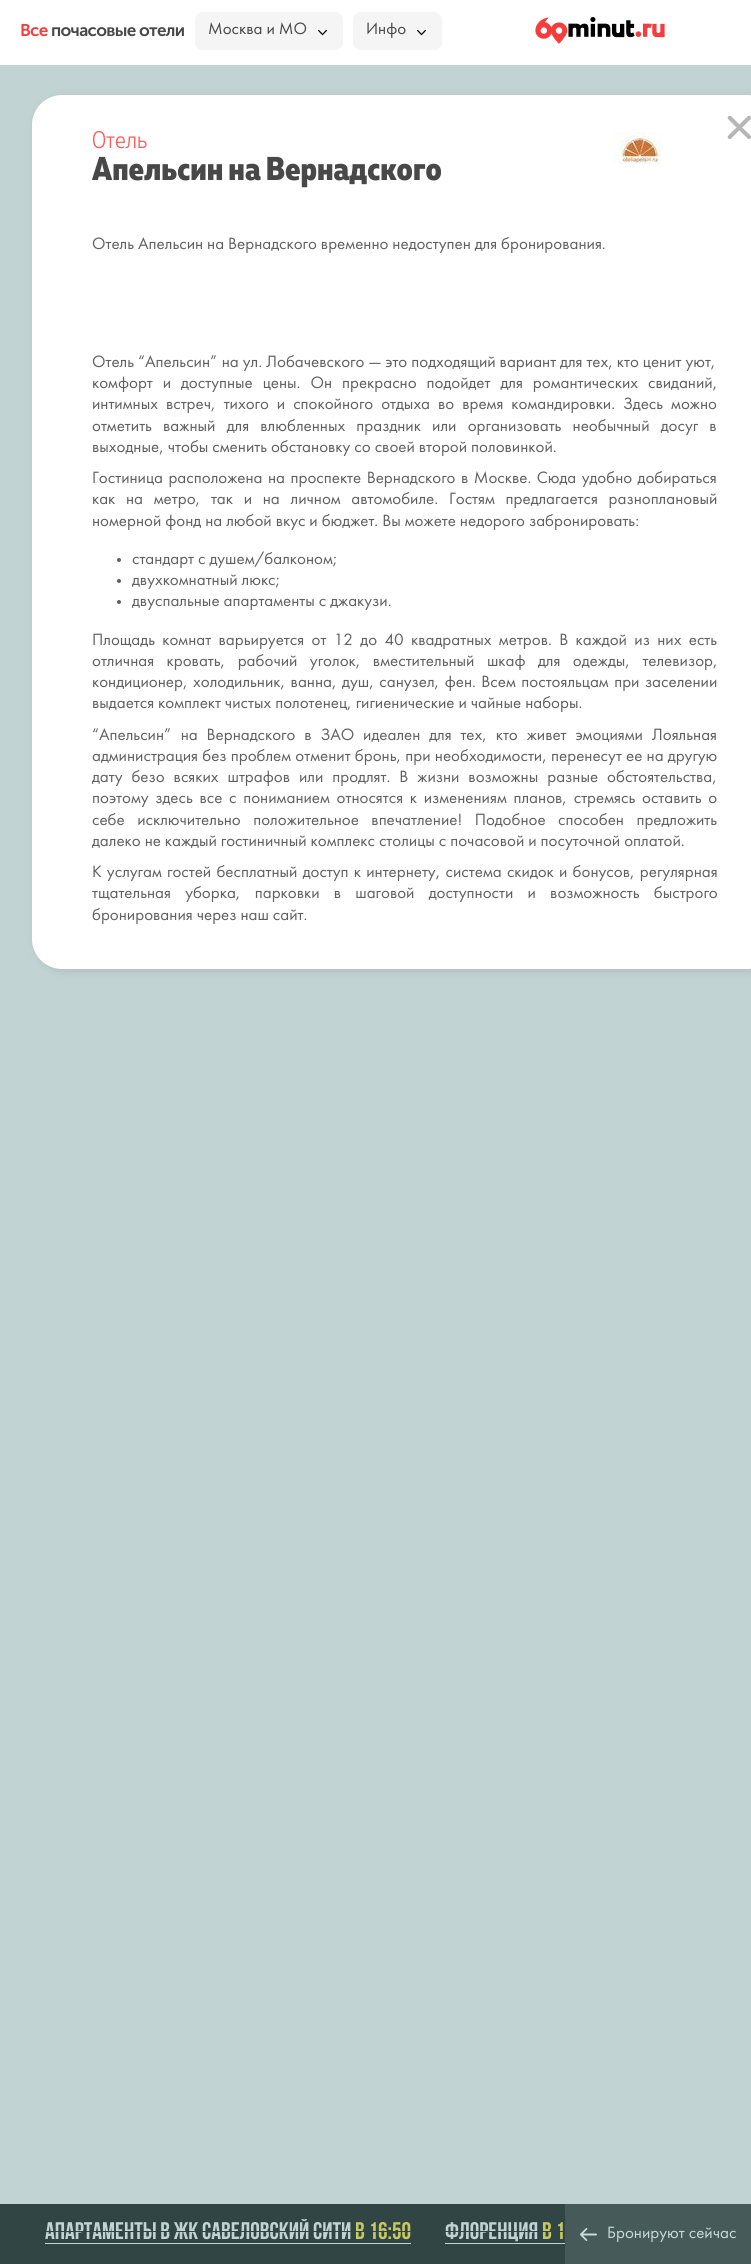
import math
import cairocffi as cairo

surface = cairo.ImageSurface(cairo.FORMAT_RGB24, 751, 2264)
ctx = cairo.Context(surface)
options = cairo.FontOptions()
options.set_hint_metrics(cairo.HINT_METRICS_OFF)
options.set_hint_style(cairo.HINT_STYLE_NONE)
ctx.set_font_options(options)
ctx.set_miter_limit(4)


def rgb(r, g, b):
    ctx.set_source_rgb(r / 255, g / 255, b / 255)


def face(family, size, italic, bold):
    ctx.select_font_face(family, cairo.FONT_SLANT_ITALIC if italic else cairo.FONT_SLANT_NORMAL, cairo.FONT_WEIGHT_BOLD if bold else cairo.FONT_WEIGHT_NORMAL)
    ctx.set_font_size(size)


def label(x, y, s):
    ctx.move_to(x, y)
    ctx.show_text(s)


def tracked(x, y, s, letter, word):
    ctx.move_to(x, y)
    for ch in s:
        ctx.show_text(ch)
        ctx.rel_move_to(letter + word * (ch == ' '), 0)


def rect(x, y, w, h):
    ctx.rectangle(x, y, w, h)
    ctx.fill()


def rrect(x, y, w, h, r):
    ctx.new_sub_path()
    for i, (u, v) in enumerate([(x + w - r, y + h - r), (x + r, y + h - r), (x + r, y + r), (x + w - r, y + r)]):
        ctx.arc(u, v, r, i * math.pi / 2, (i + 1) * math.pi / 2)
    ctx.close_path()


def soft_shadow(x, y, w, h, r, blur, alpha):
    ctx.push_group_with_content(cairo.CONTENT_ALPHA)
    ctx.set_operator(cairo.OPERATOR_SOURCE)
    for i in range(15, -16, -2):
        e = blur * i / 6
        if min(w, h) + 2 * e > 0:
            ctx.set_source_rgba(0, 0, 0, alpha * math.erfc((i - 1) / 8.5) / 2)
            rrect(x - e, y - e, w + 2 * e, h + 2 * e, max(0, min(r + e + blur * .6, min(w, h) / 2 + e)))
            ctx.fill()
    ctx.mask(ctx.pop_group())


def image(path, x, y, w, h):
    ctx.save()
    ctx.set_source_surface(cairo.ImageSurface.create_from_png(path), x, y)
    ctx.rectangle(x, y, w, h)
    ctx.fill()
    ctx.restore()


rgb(193, 211, 211)
ctx.paint()
rgb(255, 255, 255)
rect(0, 0, 751, 65)
face('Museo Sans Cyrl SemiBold', 17, 0, 0)
rgb(246, 61, 61)
tracked(20, 36, 'Все', -0.7, 0)
rgb(72, 72, 72)
tracked(51, 36, 'почасовые отели', -0.7, 0)
rgb(245, 245, 245)
rrect(195, 12, 148, 38, 8)
ctx.fill()
face('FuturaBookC', 17, 0, 0)
rgb(72, 72, 72)
label(208, 34, 'Москва и МО')
image('image0.png', 318, 29, 9, 7)
rgb(245, 245, 245)
rrect(353, 12, 89, 38, 8)
ctx.fill()
rgb(72, 72, 72)
label(366, 34, 'Инфо')
image('image0.png', 417, 29, 9, 7)
image('image1.png', 535, 17, 130, 27)
rgb(65, 63, 62)
soft_shadow(35, 97, 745, 874, 30, 5, 0.15)
rgb(255, 255, 255)
rrect(32, 95, 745, 874, 30)
ctx.fill()
image('image2.png', 727, 115, 24, 24)
face('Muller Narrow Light', 24, 0, 0)
rgb(255, 88, 88)
label(92, 148, 'Отель')
face('Muller Narrow ExtraBold', 33, 0, 0)
rgb(72, 72, 72)
label(92, 180, 'Апельсин на Вернадского')
image('image3.png', 613, 132, 49, 32)
face('FuturaBookC', 17, 0, 0)
rgb(96, 96, 96)
label(92, 249, 'Отель Апельсин на Вернадского временно недоступен для бронирования.')
label(92, 367, 'Отель “Апельсин” на ул. Лобачевского — это подходящий вариант для тех, кто ценит уют,')
tracked(92, 388, 'комфорт и доступные цены. Он прекрасно подойдет для романтических свиданий,', 0, 6)
tracked(92, 409, 'интимных встреч, тихого и спокойного отдыха во время командировки. Здесь можно', 0, 4)
tracked(92, 431, 'отметить важный для влюбленных праздник или организовать необычный досуг в', 0, 7.25)
label(92, 452, 'выходные, чтобы сменить обстановку со своей второй половинкой.')
tracked(92, 483, 'Гостиница расположена на проспекте Вернадского в Москве. Сюда удобно добираться', 0, 1.5)
tracked(92, 504, 'как на метро, так и на личном автомобиле. Гостям предлагается разноплановый', 0, 6.75)
label(92, 526, 'номерной фонд на любой вкус и бюджет. Вы можете недорого забронировать:')
ctx.new_path()
ctx.arc(119, 560, 2, 0, 2 * math.pi)
ctx.fill()
label(132, 564, 'стандарт с душем/балконом;')
ctx.new_path()
ctx.arc(119, 581, 2, 0, 2 * math.pi)
ctx.fill()
label(132, 585, 'двухкомнатный люкс;')
ctx.new_path()
ctx.arc(119, 602, 2, 0, 2 * math.pi)
ctx.fill()
label(132, 606, 'двуспальные апартаменты с джакузи.')
tracked(92, 645, 'Площадь комнат варьируется от 12 до 40 квадратных метров. В каждой из них есть', 0, 3.4)
tracked(92, 666, 'отличная кровать, рабочий уголок, вместительный шкаф для одежды, телевизор,', 0, 8.5)
tracked(92, 687, 'кондиционер, холодильник, ванна, душ, санузел, фен. Всем постояльцам при заселении', 0, 1.5)
label(92, 708, 'выдается комплект чистых полотенец, гигиенические и чайные наборы.')
tracked(92, 740, '“Апельсин” на Вернадского в ЗАО идеален для тех, кто живет эмоциями Лояльная', 0, 4.9)
tracked(92, 761, 'администрация без проблем отменит бронь, при необходимости, перенесут ее на другую', 0, 0.25)
tracked(92, 782, 'дату безо всяких штрафов или продлят. В жизни возможны разные обстоятельства,', 0, 5)
tracked(92, 803, 'поэтому здесь все с пониманием относятся к изменениям планов, стремясь оставить о', 0, 2.75)
tracked(92, 825, 'себе исключительно положительное впечатление! Подобное способен предложить', 0, 8.5)
label(92, 846, 'далеко не каждый гостиничный комплекс столицы с почасовой и посуточной оплатой.')
tracked(92, 877, 'К услугам гостей бесплатный доступ к интернету, система скидок и бонусов, регулярная', 0, 1.25)
tracked(92, 898, 'тщательная уборка, парковки в шаговой доступности и возможность быстрого', 0, 10.25)
label(92, 920, 'бронирования через наш сайт.')
rgb(50, 69, 69)
rect(0, 2204, 565, 60)
rgb(193, 211, 211)
rect(45, 2243, 366, 1)
ctx.save()
ctx.rectangle(15, 2219, 721, 28)
ctx.clip()
face('Bebas Neue', 24, 0, 1)
label(45, 2239, 'Апартаменты в ЖК Савеловский Сити')
ctx.restore()
face('Bebas Neue', 24, 0, 1)
rgb(199, 200, 97)
label(355, 2239, 'В 16:50')
rgb(50, 69, 69)
rect(45, 2231, 366, 1)
rgb(193, 211, 211)
rect(445, 2243, 120, 1)
label(445, 2239, 'ФЛОРЕНЦИЯ')
rgb(199, 200, 97)
label(542, 2239, 'В 1')
rgb(50, 69, 69)
rect(445, 2231, 120, 1)
rgb(71, 90, 90)
rect(565, 2204, 186, 60)
image('image4.png', 580, 2228, 17, 13)
face('FuturaBookC', 17, 0, 0)
rgb(200, 218, 218)
label(607, 2238, 'Бронируют сейчас')
surface.write_to_png('render.png')
